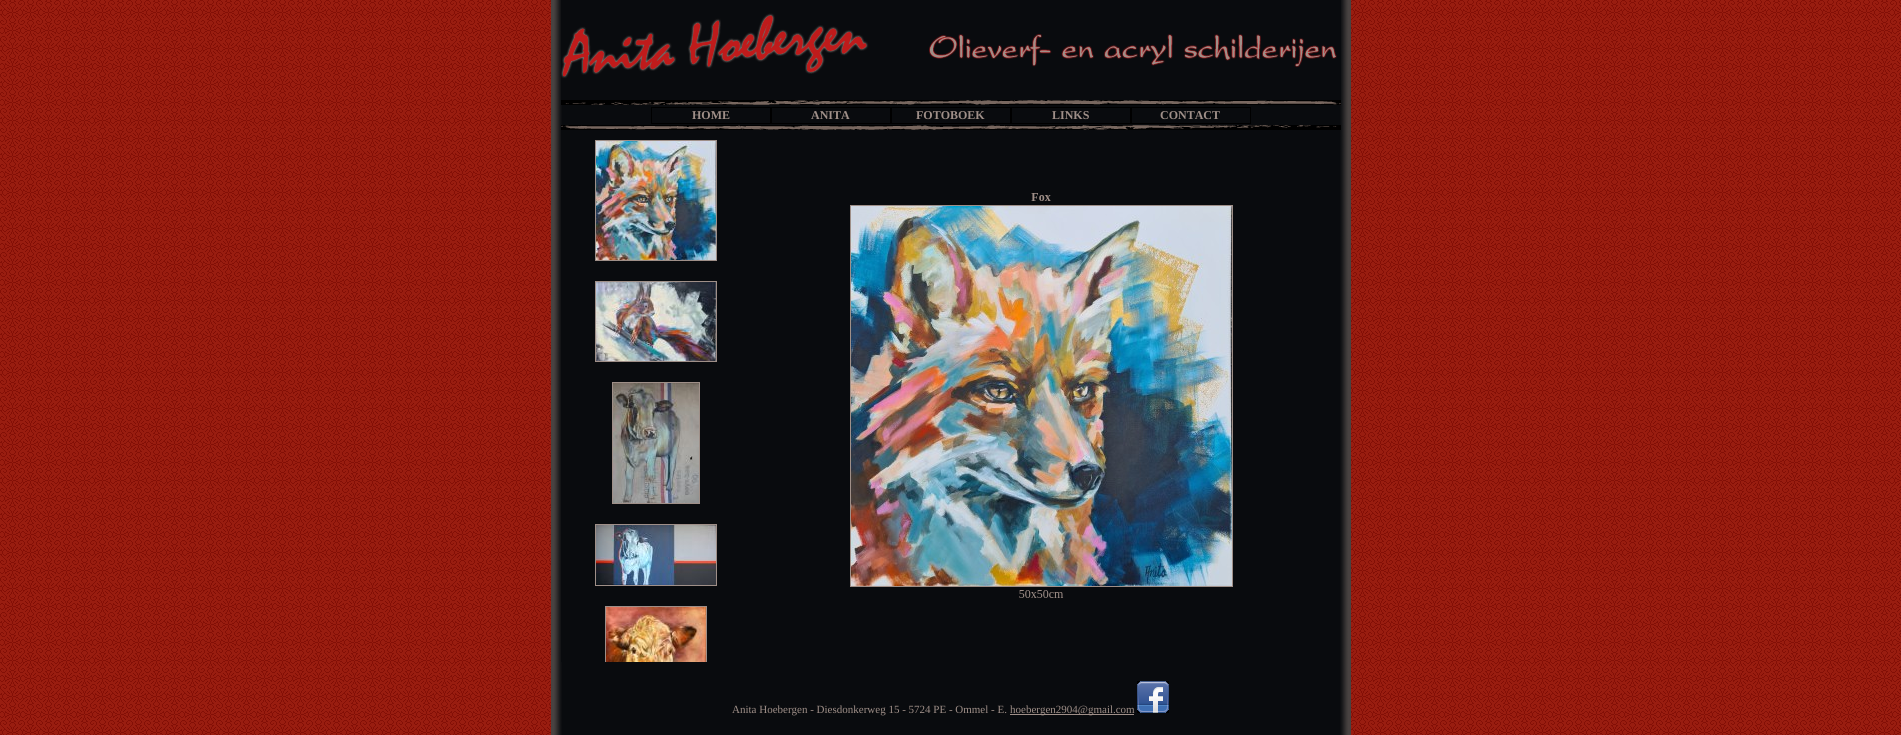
import math
import cairocffi as cairo

surface = cairo.ImageSurface(cairo.FORMAT_RGB24, 1901, 735)
ctx = cairo.Context(surface)
options = cairo.FontOptions()
options.set_hint_metrics(cairo.HINT_METRICS_OFF)
options.set_hint_style(cairo.HINT_STYLE_NONE)
ctx.set_font_options(options)
ctx.set_miter_limit(4)


def rgb(r, g, b):
    ctx.set_source_rgb(r / 255, g / 255, b / 255)


def face(family, size, italic, bold):
    ctx.select_font_face(family, cairo.FONT_SLANT_ITALIC if italic else cairo.FONT_SLANT_NORMAL, cairo.FONT_WEIGHT_BOLD if bold else cairo.FONT_WEIGHT_NORMAL)
    ctx.set_font_size(size)


def label(x, y, s):
    ctx.move_to(x, y)
    ctx.show_text(s)


def rect(x, y, w, h):
    ctx.rectangle(x, y, w, h)
    ctx.fill()


def image(path, x, y, w, h):
    ctx.save()
    ctx.set_source_surface(cairo.ImageSurface.create_from_png(path), x, y)
    ctx.rectangle(x, y, w, h)
    ctx.fill()
    ctx.restore()


rgb(255, 255, 255)
ctx.paint()
image('image0.png', 0, 0, 1901, 735)
image('image1.png', 551, 0, 800, 662)
image('image2.png', 561, 0, 780, 100)
image('image3.png', 561, 100, 780, 5)
ctx.rectangle(651.5, 107.5, 119, 16)
rgb(0, 0, 0)
ctx.set_line_width(1)
ctx.stroke()
face('Liberation Serif', 12, 0, 1)
rgb(159, 143, 136)
label(692, 119, 'HOME')
ctx.rectangle(771.5, 107.5, 119, 16)
rgb(0, 0, 0)
ctx.stroke()
rgb(159, 143, 136)
label(811, 119, 'ANITA')
ctx.rectangle(891.5, 107.5, 119, 16)
rgb(0, 0, 0)
ctx.stroke()
rgb(159, 143, 136)
label(916, 119, 'FOTOBOEK')
ctx.rectangle(1011.5, 107.5, 119, 16)
rgb(0, 0, 0)
ctx.stroke()
rgb(159, 143, 136)
label(1052, 119, 'LINKS')
ctx.rectangle(1131.5, 107.5, 119, 16)
rgb(0, 0, 0)
ctx.stroke()
rgb(159, 143, 136)
label(1160, 119, 'CONTACT')
image('image4.png', 561, 125, 780, 5)
image('image5.png', 561, 130, 156, 532)
image('image6.png', 850, 193, 383, 405)
image('image7.png', 551, 662, 800, 73)
face('Liberation Serif', 11, 0, 0)
label(732, 713, 'Anita Hoebergen - Diesdonkerweg 15 - 5724 PE - Ommel - E.')
rect(1010, 714, 124, 1)
label(1010, 713, 'hoebergen2904@gmail.com')
image('image8.png', 1137, 681, 32, 32)
surface.write_to_png('render.png')
